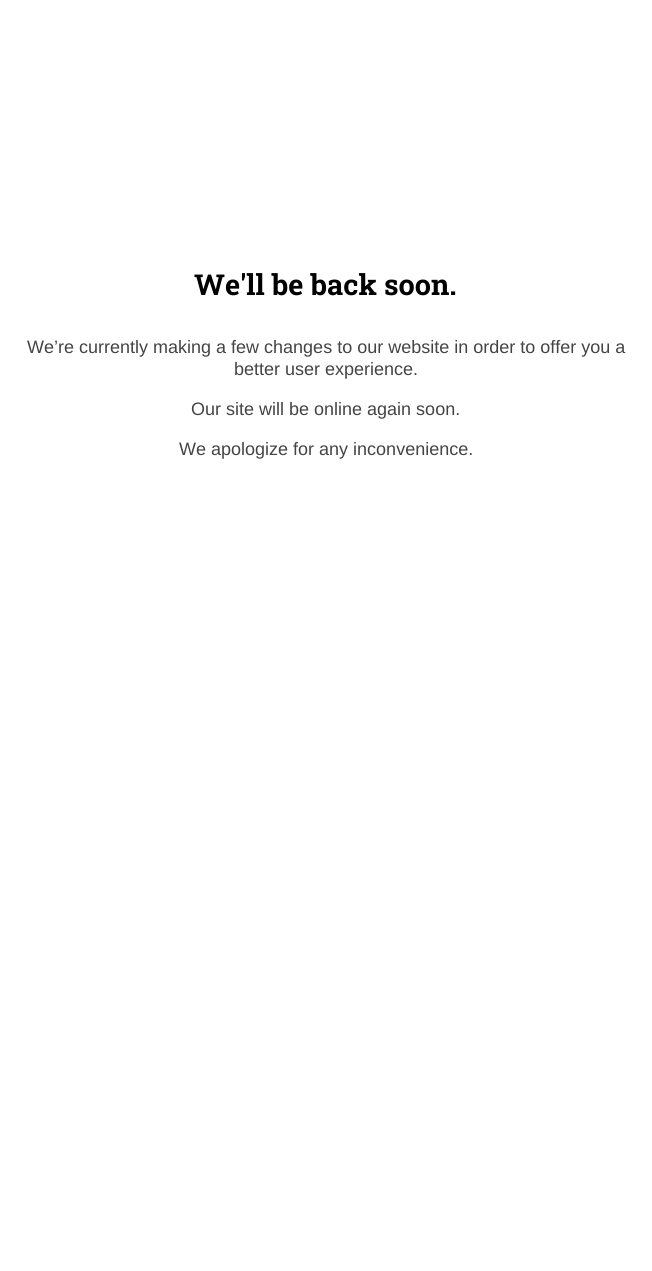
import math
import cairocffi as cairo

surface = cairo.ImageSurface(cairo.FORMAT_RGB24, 652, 1271)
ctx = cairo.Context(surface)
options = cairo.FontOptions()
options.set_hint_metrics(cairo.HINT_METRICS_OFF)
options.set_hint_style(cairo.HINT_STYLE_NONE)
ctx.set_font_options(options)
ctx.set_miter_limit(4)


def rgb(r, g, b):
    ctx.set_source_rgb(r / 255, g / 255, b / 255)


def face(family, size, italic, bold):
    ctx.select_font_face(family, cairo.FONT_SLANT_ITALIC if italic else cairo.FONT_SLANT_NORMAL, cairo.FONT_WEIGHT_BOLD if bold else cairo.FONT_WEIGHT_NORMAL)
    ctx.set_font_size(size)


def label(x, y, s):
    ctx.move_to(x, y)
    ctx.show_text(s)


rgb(255, 255, 255)
ctx.paint()
face('Roboto Slab', 28.75, 0, 1)
rgb(0, 0, 0)
label(194, 295, 'We\'ll be back soon.')
face('Liberation Sans', 18, 0, 0)
rgb(68, 68, 68)
label(27, 353, 'We’re currently making a few changes to our website in order to offer you a')
label(234, 375, 'better user experience.')
label(191, 415, 'Our site will be online again soon.')
label(179, 455, 'We apologize for any inconvenience.')
surface.write_to_png('render.png')
